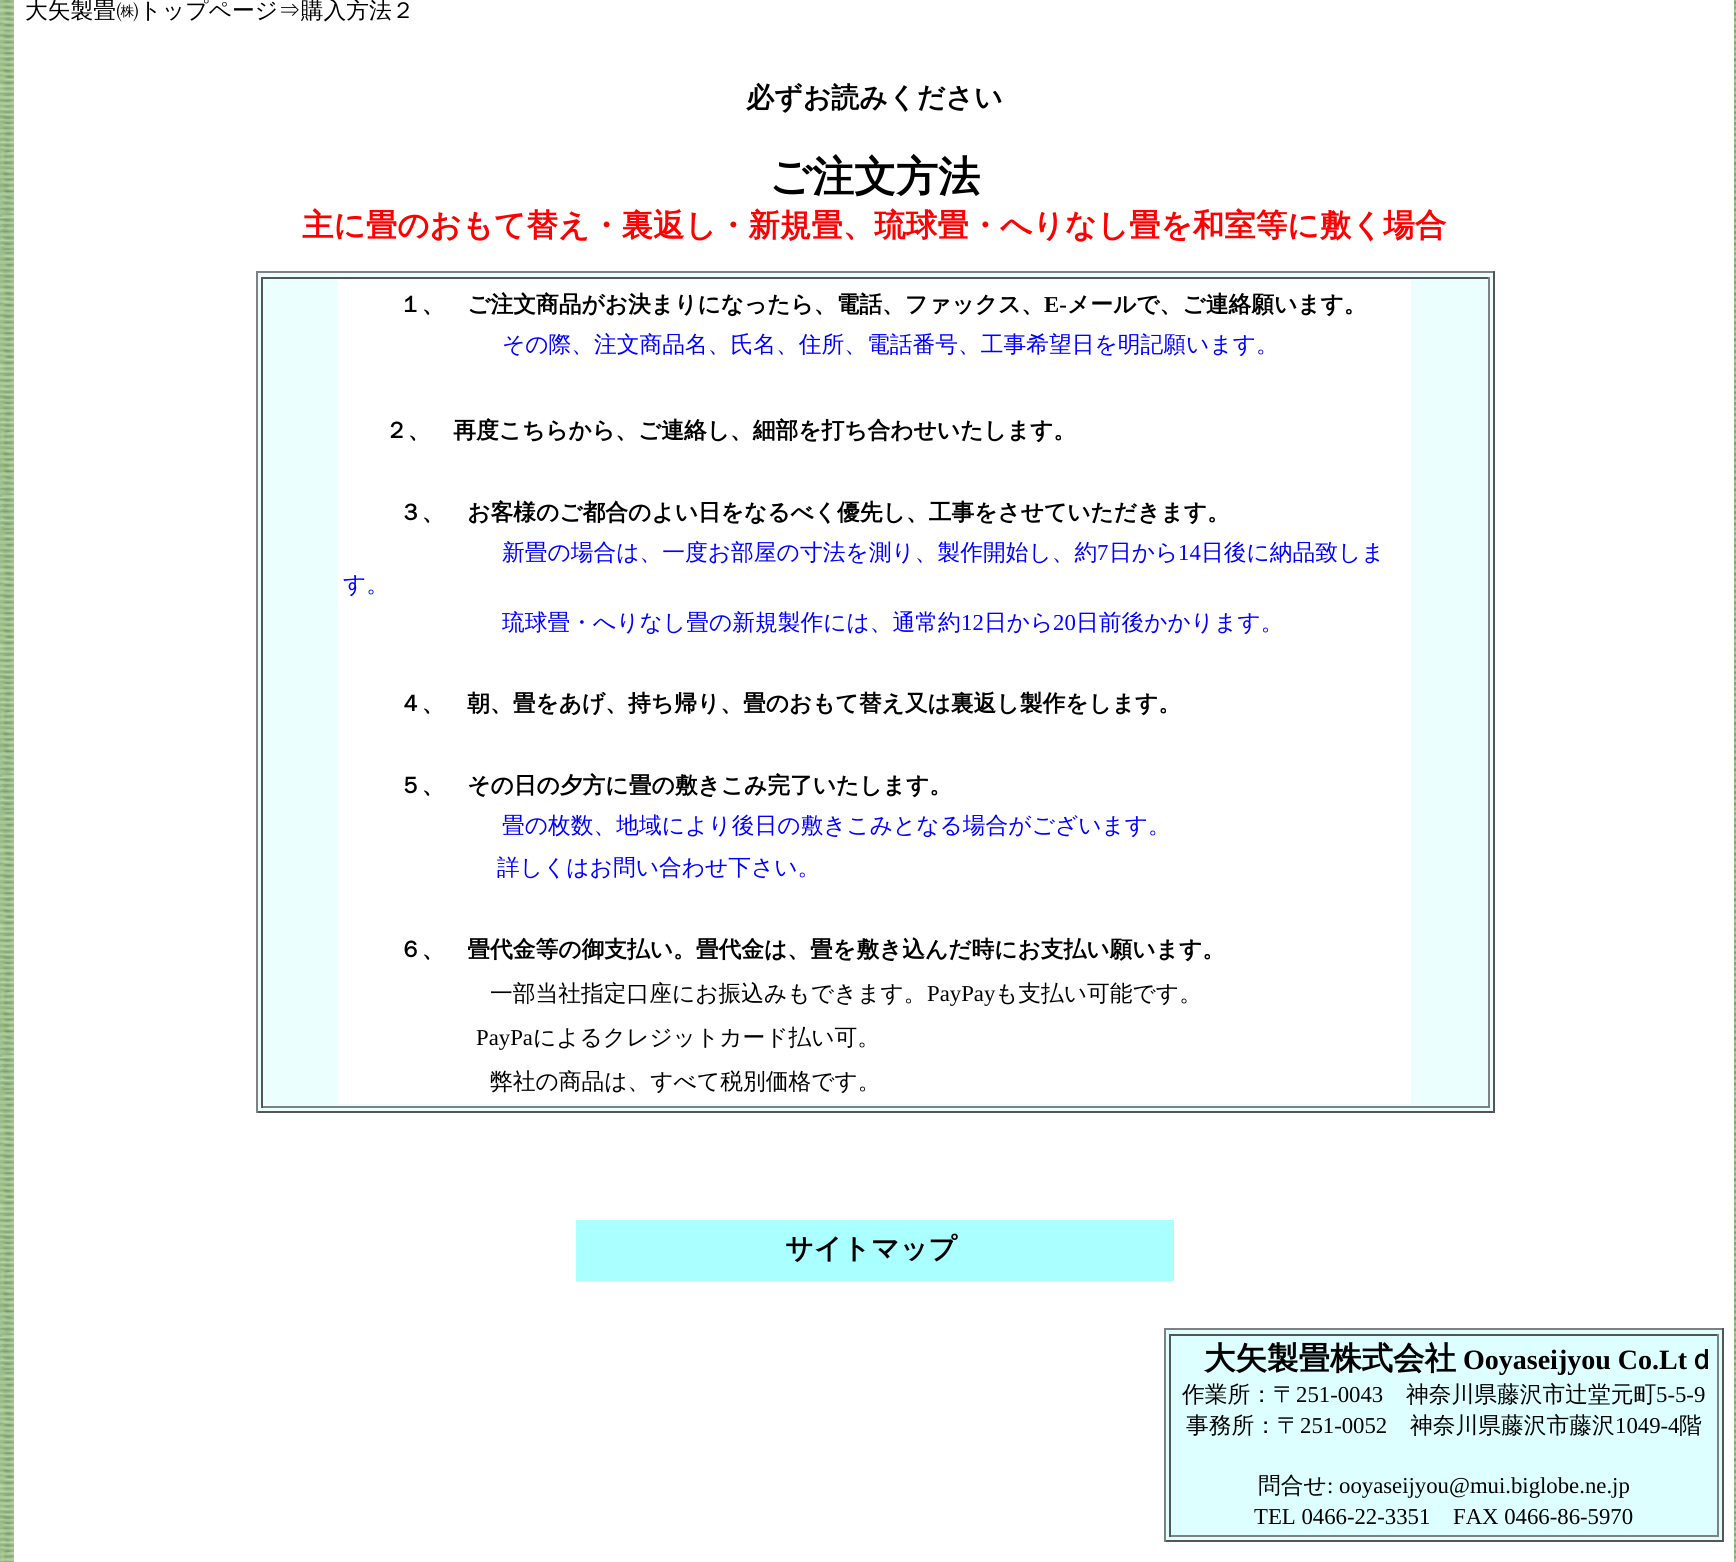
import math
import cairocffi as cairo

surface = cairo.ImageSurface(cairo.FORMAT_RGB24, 1736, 1562)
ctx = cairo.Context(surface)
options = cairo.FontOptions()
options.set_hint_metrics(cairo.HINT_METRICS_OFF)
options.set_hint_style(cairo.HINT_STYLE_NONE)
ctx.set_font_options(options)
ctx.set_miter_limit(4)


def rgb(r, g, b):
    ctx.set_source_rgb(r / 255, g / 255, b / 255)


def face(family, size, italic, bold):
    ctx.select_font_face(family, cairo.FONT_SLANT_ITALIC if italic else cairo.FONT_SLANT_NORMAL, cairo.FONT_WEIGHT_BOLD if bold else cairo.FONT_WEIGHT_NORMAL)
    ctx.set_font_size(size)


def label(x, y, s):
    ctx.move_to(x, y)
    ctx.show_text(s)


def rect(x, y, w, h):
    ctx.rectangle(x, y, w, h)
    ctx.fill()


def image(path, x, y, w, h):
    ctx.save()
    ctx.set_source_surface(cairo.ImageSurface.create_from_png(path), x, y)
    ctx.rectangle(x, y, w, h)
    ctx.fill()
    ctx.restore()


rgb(255, 255, 255)
ctx.paint()
image('image0.png', 0, 0, 1736, 1562)
rgb(255, 255, 255)
rect(14, 0, 1720, 1562)
face('WenQuanYi Zen Hei Medium', 22.75, 0, 0)
rgb(0, 0, 0)
label(25, 18, '大矢製畳㈱トップページ⇒購入方法２')
face('WenQuanYi Zen Hei', 28, 0, 1)
label(746, 107, '必ずお読みください')
face('WenQuanYi Zen Hei', 42, 0, 1)
label(769, 191, 'ご注文方法')
face('WenQuanYi Zen Hei', 31.5, 0, 1)
rgb(255, 0, 0)
label(302, 236, '主に畳のおもて替え・裏返し・新規畳、琉球畳・へりなし畳を和室等に敷く場合')
rgb(236, 255, 255)
rect(258, 273, 1235, 838)
rgb(128, 128, 128)
rect(256, 271, 1239, 2)
rgb(85, 85, 85)
rect(1493, 271, 2, 842)
rect(256, 1111, 1239, 2)
rgb(128, 128, 128)
rect(256, 271, 2, 842)
rgb(85, 85, 85)
rect(261, 277, 1228, 2)
rgb(128, 128, 128)
rect(1488, 277, 2, 831)
rect(261, 1106, 1228, 2)
rgb(85, 85, 85)
rect(261, 277, 2, 831)
rgb(255, 255, 255)
rect(338, 280, 1073, 824)
face('WenQuanYi Zen Hei', 22.75, 0, 1)
rgb(0, 0, 0)
label(399, 312, '１、　ご注文商品がお決まりになったら、電話、ファックス、')
face('Liberation Serif', 22.75, 0, 1)
label(1044, 312, 'E-')
face('WenQuanYi Zen Hei', 22.75, 0, 1)
label(1067, 312, 'メールで、ご連絡願います。')
face('WenQuanYi Zen Hei Medium', 22.75, 0, 0)
rgb(0, 0, 255)
label(502, 352, 'その際、注文商品名、氏名、住所、電話番号、工事希望日を明記願います。')
face('WenQuanYi Zen Hei', 22.75, 0, 1)
rgb(0, 0, 0)
label(385, 438, '２、　再度こちらから、ご連絡し、細部を打ち合わせいたします。')
label(399, 520, '３、　お客様のご都合のよい日をなるべく優先し、工事をさせていただきます。')
face('WenQuanYi Zen Hei Medium', 22.75, 0, 0)
rgb(0, 0, 255)
label(502, 560, '新畳の場合は、一度お部屋の寸法を測り、製作開始し、約')
face('Liberation Serif', 22.75, 0, 0)
label(1097, 560, '7')
face('WenQuanYi Zen Hei Medium', 22.75, 0, 0)
label(1109, 560, '日から')
face('Liberation Serif', 22.75, 0, 0)
label(1178, 560, '14')
face('WenQuanYi Zen Hei Medium', 22.75, 0, 0)
label(1201, 560, '日後に納品致しま')
label(343, 592, 'す。')
label(502, 630, '琉球畳・へりなし畳の新規製作には、通常約')
face('Liberation Serif', 22.75, 0, 0)
label(961, 630, '12')
face('WenQuanYi Zen Hei Medium', 22.75, 0, 0)
label(984, 630, '日から')
face('Liberation Serif', 22.75, 0, 0)
label(1053, 630, '20')
face('WenQuanYi Zen Hei Medium', 22.75, 0, 0)
label(1076, 630, '日前後かかります。')
face('WenQuanYi Zen Hei', 22.75, 0, 1)
rgb(0, 0, 0)
label(399, 711, '４、　朝、畳をあげ、持ち帰り、畳のおもて替え又は裏返し製作をします。')
label(399, 793, '５、　その日の夕方に畳の敷きこみ完了いたします。')
face('WenQuanYi Zen Hei Medium', 22.75, 0, 0)
rgb(0, 0, 255)
label(502, 833, '畳の枚数、地域により後日の敷きこみとなる場合がございます。')
label(497, 875, '詳しくはお問い合わせ下さい。')
face('WenQuanYi Zen Hei', 22.75, 0, 1)
rgb(0, 0, 0)
label(399, 957, '６、　畳代金等の御支払い。畳代金は、畳を敷き込んだ時にお支払い願います。')
face('WenQuanYi Zen Hei Medium', 22.75, 0, 0)
label(490, 1001, '一部当社指定口座にお振込みもできます。')
face('Liberation Serif', 22.75, 0, 0)
label(927, 1001, 'PayPay')
face('WenQuanYi Zen Hei Medium', 22.75, 0, 0)
label(995, 1001, 'も支払い可能です。')
face('Liberation Serif', 22.75, 0, 0)
label(476, 1045, 'PayPa')
face('WenQuanYi Zen Hei Medium', 22.75, 0, 0)
label(533, 1045, 'によるクレジットカード払い可。')
label(490, 1089, '弊社の商品は、すべて税別価格です。')
rgb(170, 255, 255)
rect(576, 1220, 598, 61)
face('WenQuanYi Zen Hei', 28, 0, 1)
rgb(0, 0, 0)
label(785, 1258, 'サイトマップ')
rgb(221, 255, 255)
rect(1166, 1330, 556, 210)
rgb(128, 128, 128)
rect(1164, 1328, 560, 2)
rgb(85, 85, 85)
rect(1722, 1328, 2, 214)
rect(1164, 1540, 560, 2)
rgb(128, 128, 128)
rect(1164, 1328, 2, 214)
rgb(85, 85, 85)
rect(1169, 1334, 550, 2)
rgb(128, 128, 128)
rect(1717, 1334, 2, 203)
rect(1169, 1535, 550, 2)
rgb(85, 85, 85)
rect(1169, 1334, 2, 203)
face('WenQuanYi Zen Hei', 31.5, 0, 1)
rgb(0, 0, 0)
label(1204, 1369, '大矢製畳株式会社')
face('Liberation Serif', 28, 0, 1)
label(1463, 1369, 'Ooyaseijyou Co.Lt')
face('WenQuanYi Zen Hei', 28, 0, 1)
label(1687, 1369, 'ｄ')
face('WenQuanYi Zen Hei Medium', 22.75, 0, 0)
label(1182, 1402, '作業所：〒')
face('Liberation Serif', 22.75, 0, 0)
label(1296, 1402, '251-0043')
face('WenQuanYi Zen Hei Medium', 22.75, 0, 0)
label(1406, 1402, '神奈川県藤沢市辻堂元町')
face('Liberation Serif', 22.75, 0, 0)
label(1656, 1402, '5-5-9')
face('WenQuanYi Zen Hei Medium', 22.75, 0, 0)
label(1186, 1433, '事務所：〒')
face('Liberation Serif', 22.75, 0, 0)
label(1300, 1433, '251-0052')
face('WenQuanYi Zen Hei Medium', 22.75, 0, 0)
label(1410, 1433, '神奈川県藤沢市藤沢')
face('Liberation Serif', 22.75, 0, 0)
label(1615, 1433, '1049-4')
face('WenQuanYi Zen Hei Medium', 22.75, 0, 0)
label(1679, 1433, '階')
label(1258, 1493, '問合せ')
face('Liberation Serif', 22.75, 0, 0)
label(1327, 1493, ': ooyaseijyou@mui.biglobe.ne.jp')
label(1254, 1524, 'TEL 0466-22-3351')
label(1453, 1524, 'FAX 0466-86-5970')
surface.write_to_png('render.png')
